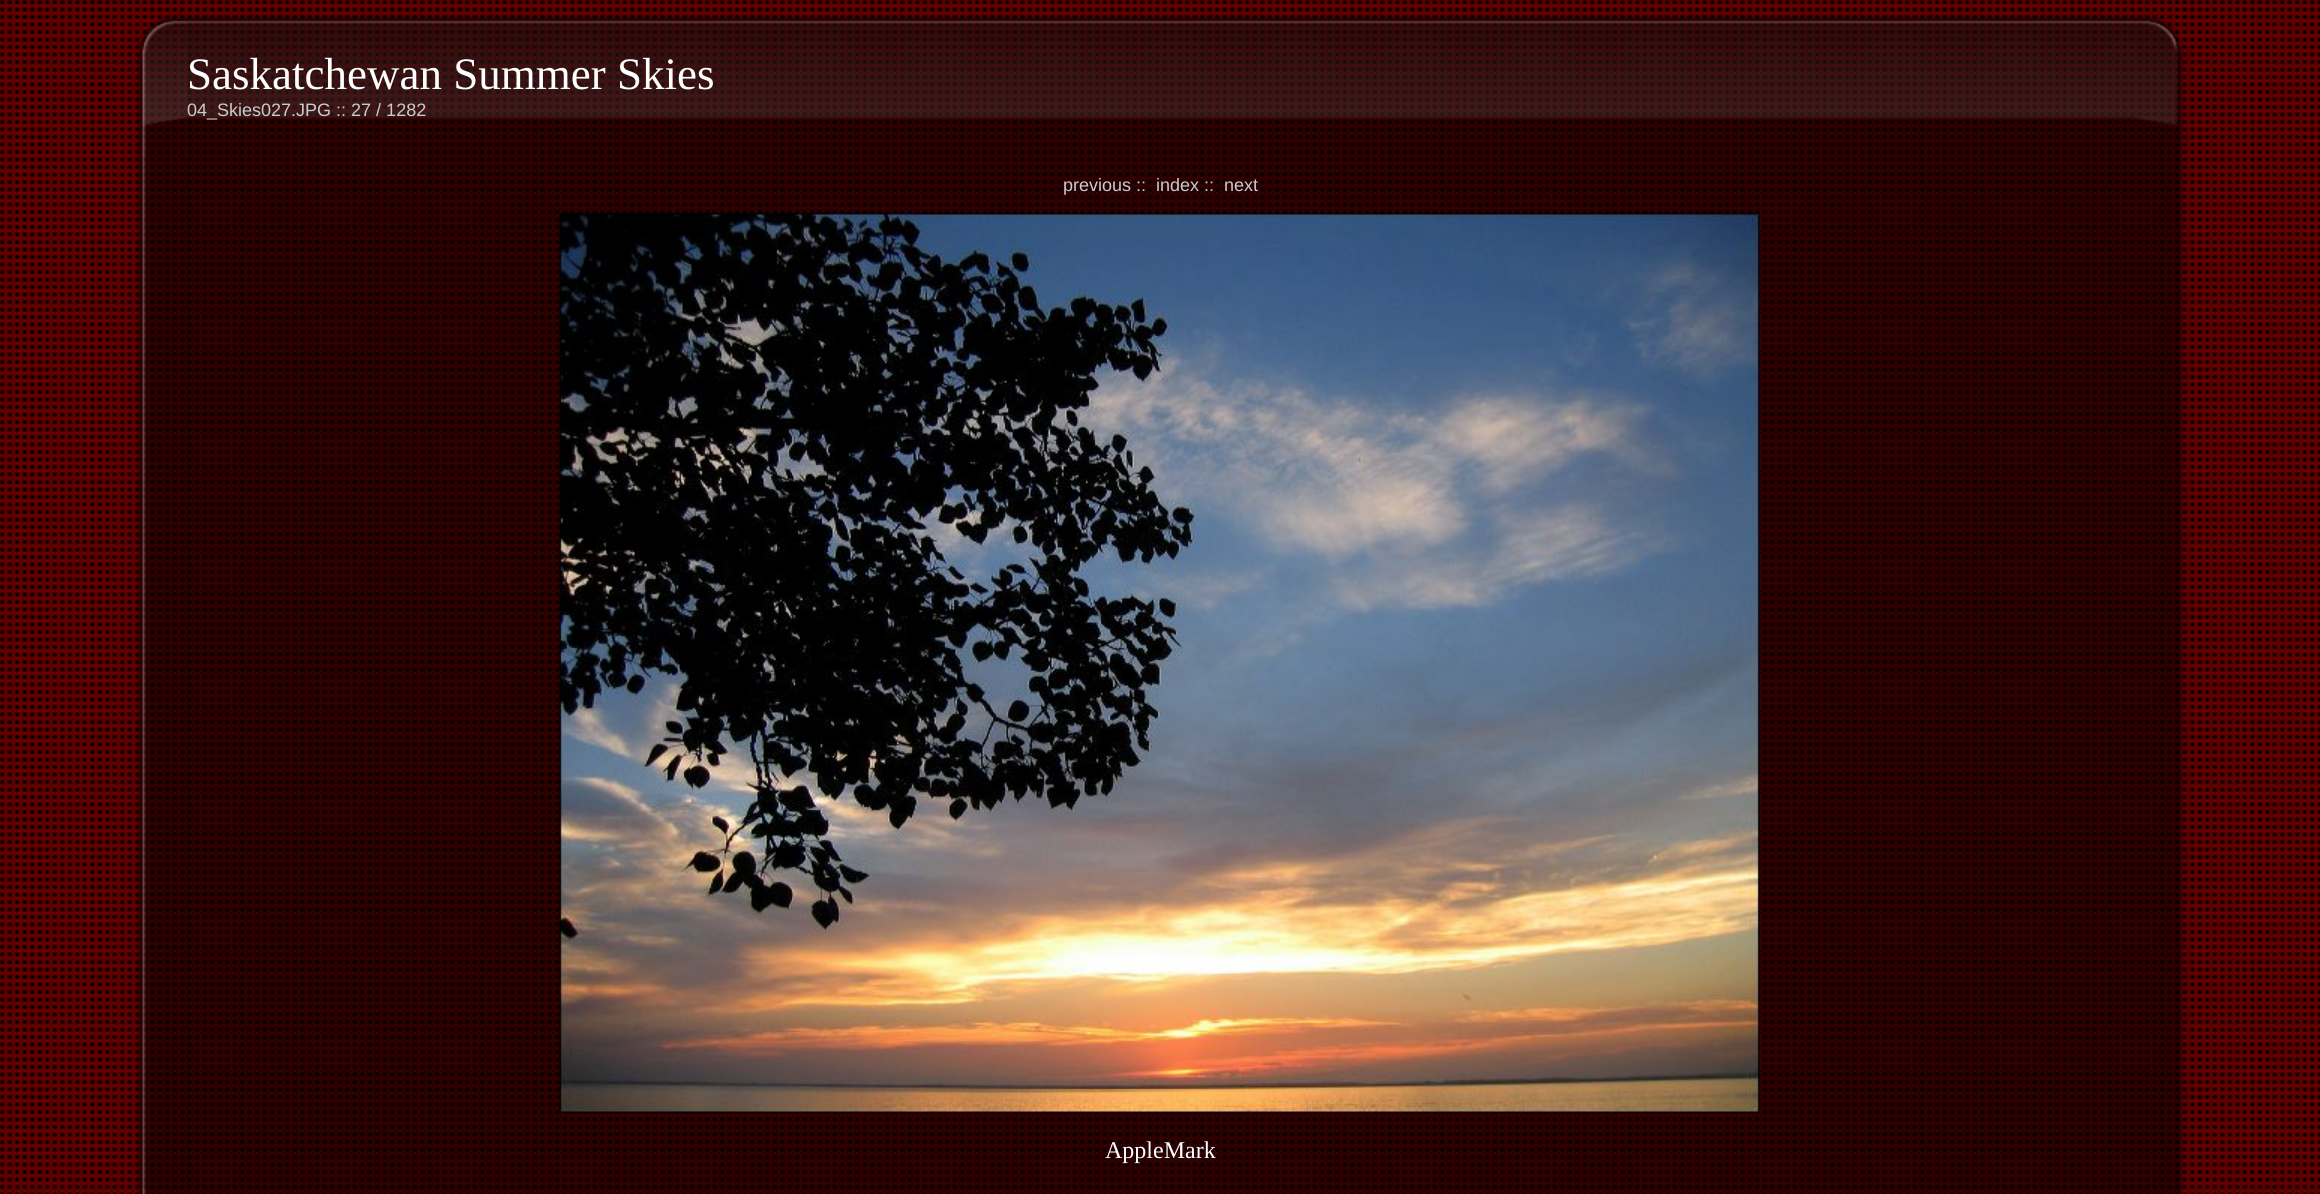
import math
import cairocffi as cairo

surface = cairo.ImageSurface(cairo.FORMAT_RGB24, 2320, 1194)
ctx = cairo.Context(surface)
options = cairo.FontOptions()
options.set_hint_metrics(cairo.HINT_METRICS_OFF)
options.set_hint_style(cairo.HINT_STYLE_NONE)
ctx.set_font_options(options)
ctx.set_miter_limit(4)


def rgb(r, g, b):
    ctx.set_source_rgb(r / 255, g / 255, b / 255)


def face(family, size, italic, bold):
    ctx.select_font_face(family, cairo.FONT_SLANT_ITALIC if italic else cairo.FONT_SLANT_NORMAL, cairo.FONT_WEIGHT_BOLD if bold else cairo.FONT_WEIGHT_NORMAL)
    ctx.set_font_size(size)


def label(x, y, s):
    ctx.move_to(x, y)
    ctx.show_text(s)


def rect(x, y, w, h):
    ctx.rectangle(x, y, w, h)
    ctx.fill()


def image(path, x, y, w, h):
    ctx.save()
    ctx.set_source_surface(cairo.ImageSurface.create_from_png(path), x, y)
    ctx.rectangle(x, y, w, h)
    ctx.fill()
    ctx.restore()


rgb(255, 255, 255)
ctx.paint()
image('image0.png', 0, 0, 2320, 1194)
image('image1.png', 136, 15, 52, 141)
image('image2.png', 187, 14, 1946, 142)
face('Liberation Serif', 45, 0, 0)
rgb(255, 255, 255)
label(187, 89, 'Saskatchewan Summer Skies')
face('Liberation Sans', 18, 0, 0)
rgb(204, 204, 204)
label(187, 116, '04_Skies027.JPG :: 27 / 1282')
image('image3.png', 2133, 15, 52, 141)
image('image4.png', 136, 156, 52, 1032)
ctx.set_source_rgba(0, 0, 0, 0.5)
rect(187, 156, 1946, 1032)
rgb(204, 204, 204)
label(1063, 191, 'previous ::')
label(1156, 191, 'index ::')
label(1224, 191, 'next')
image('image5.png', 559, 213, 1201, 900)
face('Liberation Serif', 24, 0, 0)
rgb(255, 255, 255)
label(1105, 1158, 'AppleMark')
image('image6.png', 2133, 156, 52, 1032)
image('image7.png', 136, 1188, 52, 6)
ctx.set_source_rgba(0, 0, 0, 0.5)
rect(187, 1188, 1946, 6)
image('image8.png', 2133, 1188, 52, 6)
surface.write_to_png('render.png')
